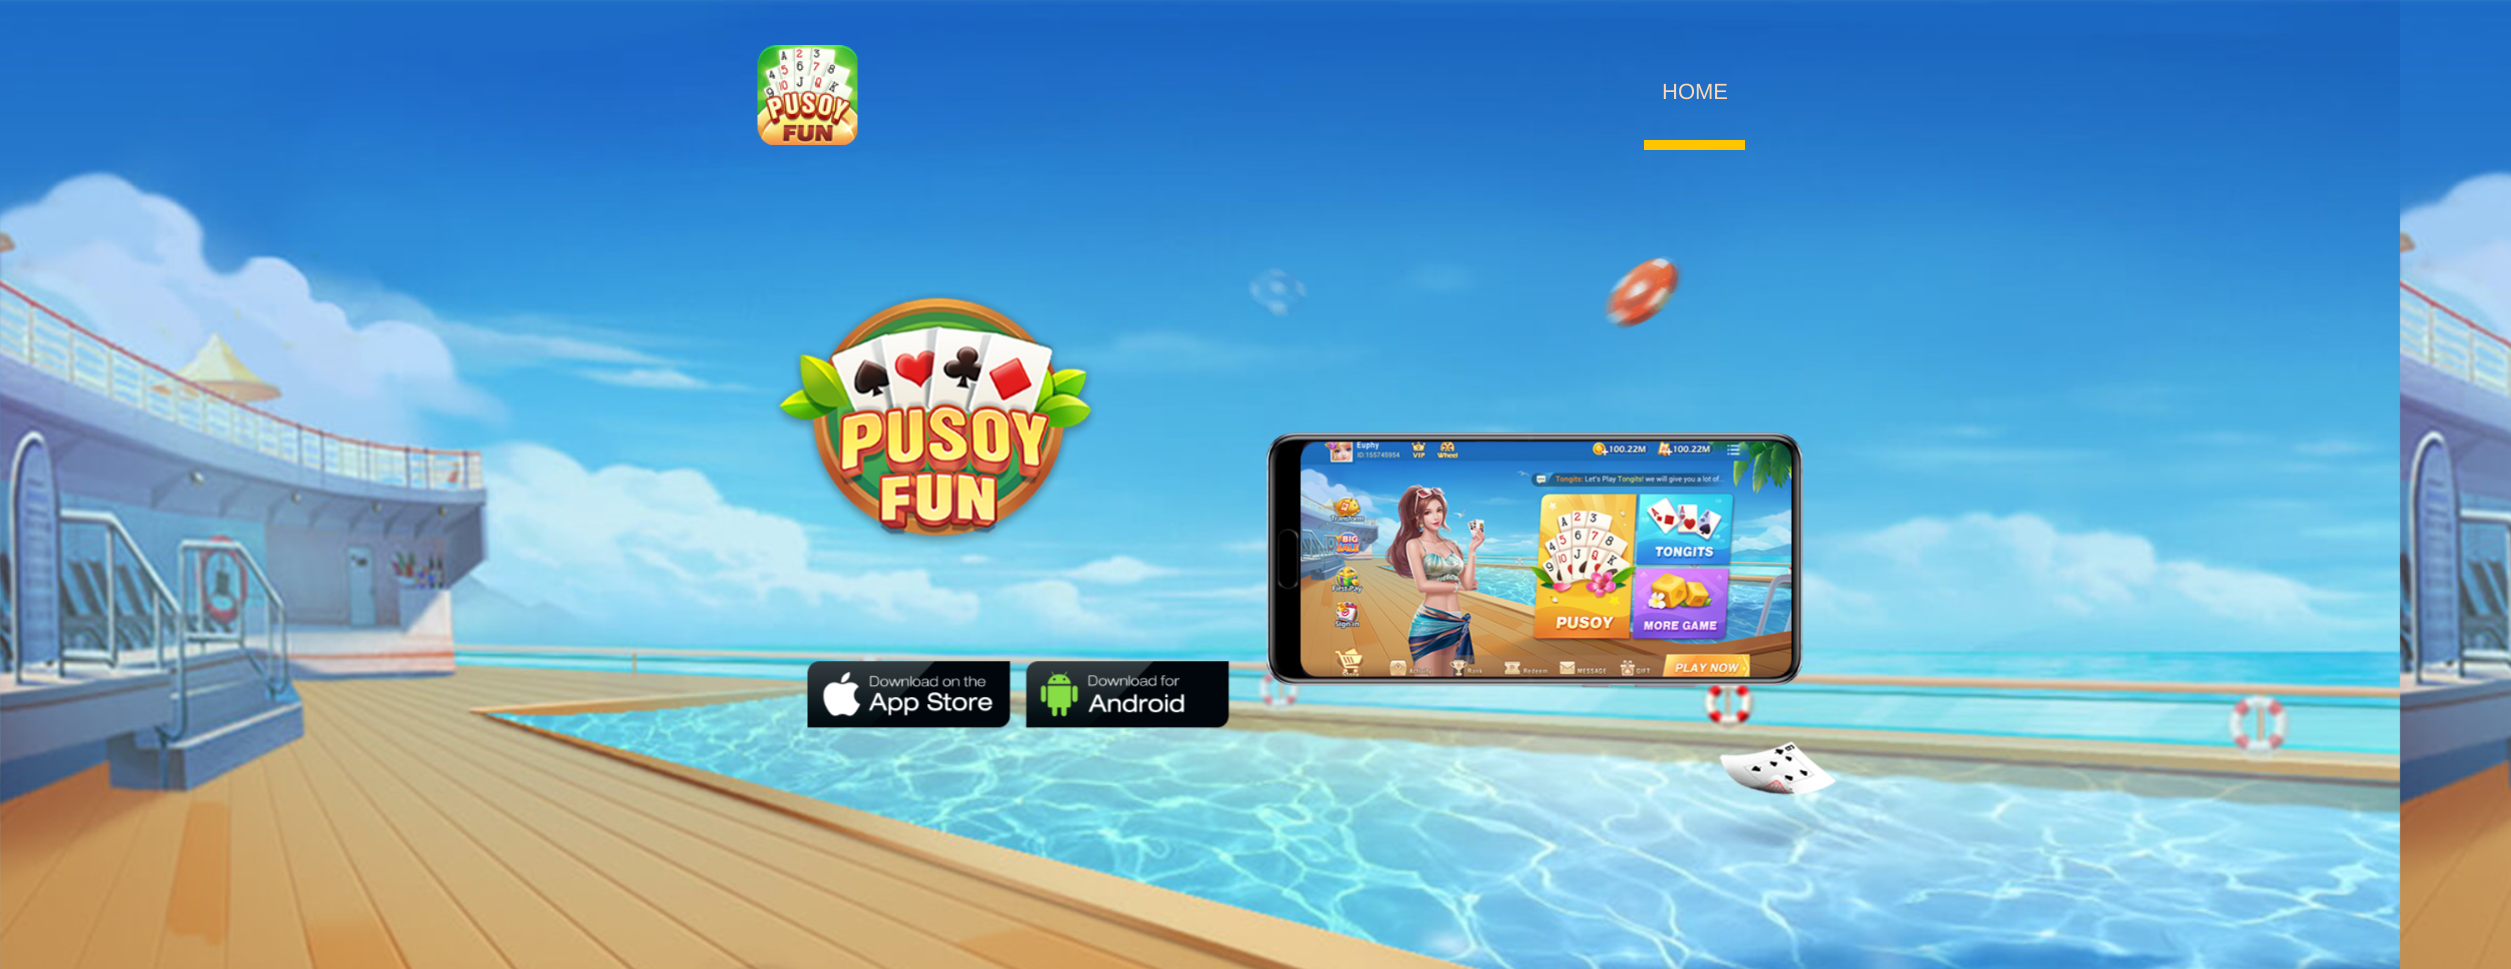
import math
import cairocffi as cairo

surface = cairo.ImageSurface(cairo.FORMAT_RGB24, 2511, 969)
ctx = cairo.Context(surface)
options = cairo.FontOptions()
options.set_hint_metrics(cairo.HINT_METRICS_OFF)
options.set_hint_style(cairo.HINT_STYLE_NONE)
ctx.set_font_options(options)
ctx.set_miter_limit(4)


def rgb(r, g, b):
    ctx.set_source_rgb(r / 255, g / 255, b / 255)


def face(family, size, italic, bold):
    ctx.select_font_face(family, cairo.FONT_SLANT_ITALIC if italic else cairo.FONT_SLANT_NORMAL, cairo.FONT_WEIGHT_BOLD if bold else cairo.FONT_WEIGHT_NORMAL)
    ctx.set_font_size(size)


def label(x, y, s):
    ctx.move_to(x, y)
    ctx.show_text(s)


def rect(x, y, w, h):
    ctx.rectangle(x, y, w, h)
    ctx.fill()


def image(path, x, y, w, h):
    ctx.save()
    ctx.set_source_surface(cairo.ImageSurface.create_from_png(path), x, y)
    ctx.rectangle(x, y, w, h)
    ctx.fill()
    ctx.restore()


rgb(255, 255, 255)
ctx.paint()
image('image0.png', 0, 0, 2511, 969)
image('image1.png', 775, 292, 321, 255)
image('image2.png', 807, 661, 204, 68)
image('image3.png', 1025, 661, 205, 68)
image('image4.png', 1247, 255, 590, 594)
image('image5.png', 1266, 432, 538, 256)
image('image6.png', 757, 45, 101, 100)
rgb(255, 198, 0)
rect(1644, 140, 101, 10)
face('Liberation Sans', 22, 0, 0)
rgb(255, 216, 181)
label(1662, 99, 'HOME')
surface.write_to_png('render.png')
